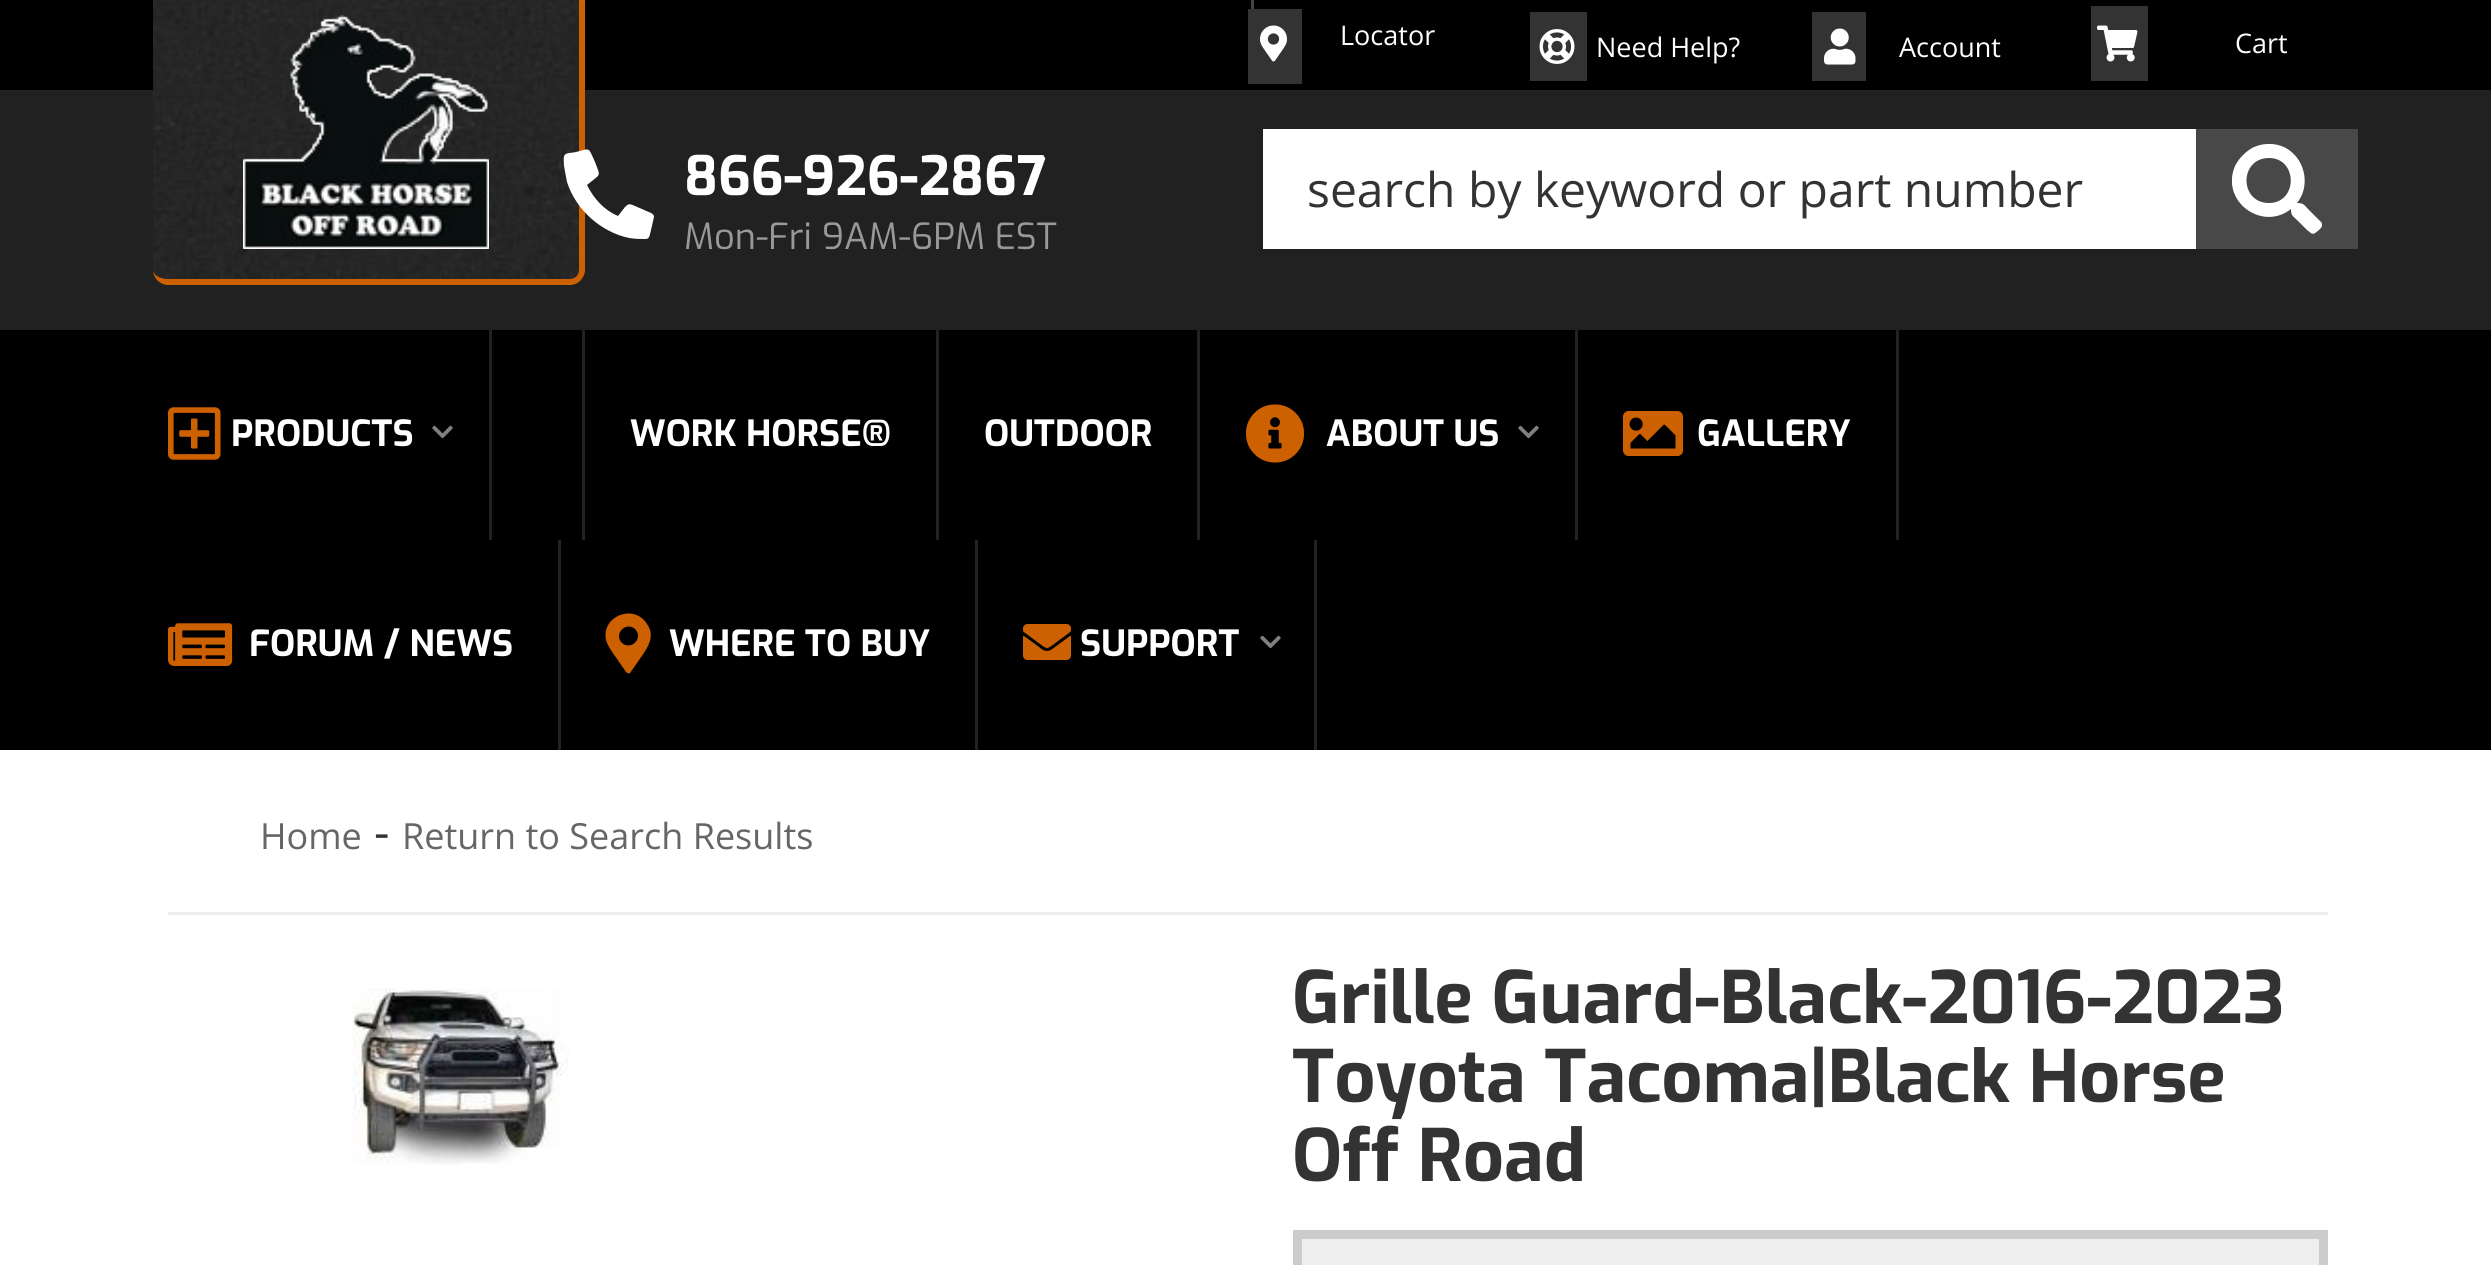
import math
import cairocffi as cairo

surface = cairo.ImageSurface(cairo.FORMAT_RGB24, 2491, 1265)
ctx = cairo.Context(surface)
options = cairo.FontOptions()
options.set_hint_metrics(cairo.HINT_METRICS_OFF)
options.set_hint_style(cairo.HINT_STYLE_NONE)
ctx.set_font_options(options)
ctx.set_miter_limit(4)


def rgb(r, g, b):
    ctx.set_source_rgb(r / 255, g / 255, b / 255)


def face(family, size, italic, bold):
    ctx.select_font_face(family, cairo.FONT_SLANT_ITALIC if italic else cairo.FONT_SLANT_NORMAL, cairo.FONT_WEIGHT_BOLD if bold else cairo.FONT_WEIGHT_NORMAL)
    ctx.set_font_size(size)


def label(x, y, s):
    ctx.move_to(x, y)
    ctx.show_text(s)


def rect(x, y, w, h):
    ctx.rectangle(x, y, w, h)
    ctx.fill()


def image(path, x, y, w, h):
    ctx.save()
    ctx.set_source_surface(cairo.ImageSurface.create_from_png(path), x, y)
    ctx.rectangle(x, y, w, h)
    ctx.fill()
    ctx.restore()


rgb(255, 255, 255)
ctx.paint()
rgb(0, 0, 0)
rect(0, 0, 2491, 90)
rgb(33, 33, 33)
rect(0, 90, 2491, 240)
image('image0.png', 153, 0, 432, 285)
rgb(205, 96, 0)
ctx.set_fill_rule(cairo.FILL_RULE_EVEN_ODD)
ctx.new_path()
ctx.move_to(168, -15)
ctx.line_to(570, -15)
ctx.curve_to(578, -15, 585, -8, 585, 0)
ctx.line_to(585, 270)
ctx.curve_to(585, 278, 578, 285, 570, 285)
ctx.line_to(168, 285)
ctx.curve_to(160, 285, 153, 278, 153, 270)
ctx.line_to(153, 0)
ctx.curve_to(153, -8, 160, -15, 168, -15)
ctx.close_path()
ctx.move_to(168, -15)
ctx.line_to(570, -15)
ctx.curve_to(575, -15, 579, -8, 579, 0)
ctx.line_to(579, 270)
ctx.curve_to(579, 275, 575, 279, 570, 279)
ctx.line_to(168, 279)
ctx.curve_to(160, 279, 153, 275, 153, 270)
ctx.line_to(153, 0)
ctx.curve_to(153, -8, 160, -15, 168, -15)
ctx.close_path()
ctx.fill()
image('image1.png', 243, 15, 246, 234)
rgb(68, 68, 68)
rect(1251, 0, 3, 9)
rgb(51, 51, 51)
rect(1248, 9, 54, 75)
image('image2.png', 1260, 25, 27, 37)
face('Open Sans', 27, 0, 0)
rgb(255, 255, 255)
label(1340, 45, 'Locator')
rgb(51, 51, 51)
rect(1530, 12, 57, 69)
image('image3.png', 1539, 29, 36, 35)
rgb(255, 255, 255)
label(1596, 57, 'Need Help?')
rgb(51, 51, 51)
rect(1812, 12, 54, 69)
image('image4.png', 1824, 28, 32, 37)
rgb(255, 255, 255)
label(1899, 57, 'Account')
rgb(51, 51, 51)
rect(2091, 6, 57, 75)
image('image5.png', 2097, 25, 41, 37)
rgb(255, 255, 255)
label(2235, 53, 'Cart')
ctx.set_fill_rule(cairo.FILL_RULE_WINDING)
ctx.new_path()
ctx.move_to(651, 213)
ctx.curve_to(653, 214, 654, 215, 654, 217)
ctx.line_to(651, 230)
ctx.curve_to(650, 233, 650, 239, 646, 239)
ctx.curve_to(639, 239, 636, 239, 629, 238)
ctx.curve_to(601, 232, 576, 210, 567, 182)
ctx.curve_to(566, 177, 565, 171, 564, 166)
ctx.curve_to(563, 152, 564, 154, 576, 152)
ctx.curve_to(591, 148, 588, 147, 595, 162)
ctx.curve_to(601, 178, 601, 173, 587, 185)
ctx.curve_to(594, 199, 604, 210, 618, 216)
ctx.line_to(625, 207)
ctx.curve_to(629, 203, 630, 204, 635, 206)
ctx.close_path()
ctx.fill()
face('Exo', 54, 0, 1)
label(684, 195, '866-926-2867')
face('Exo', 36, 0, 0)
rgb(153, 153, 153)
label(684, 249, 'Mon-Fri 9AM-6PM EST')
rgb(72, 72, 72)
rect(2196, 129, 162, 120)
ctx.set_source_rgba(0, 0, 0, 0.04)
ctx.new_path()
ctx.move_to(1260, 129)
ctx.line_to(1260, 255)
ctx.line_to(2199, 255)
ctx.line_to(2199, 129)
ctx.line_to(2196, 129)
ctx.line_to(2196, 249)
ctx.line_to(1263, 249)
ctx.line_to(1263, 129)
ctx.close_path()
ctx.fill()
rgb(255, 255, 255)
rect(1263, 129, 933, 120)
face('Open Sans', 48, 0, 0)
rgb(51, 51, 51)
label(1307, 207, 'search by keyword or part number')
ctx.save()
ctx.rectangle(2232, 144, 90, 90)
ctx.clip()
rgb(255, 255, 255)
ctx.new_path()
ctx.move_to(2321, 222)
ctx.line_to(2309, 210)
ctx.curve_to(2304, 205, 2304, 203, 2297, 203)
ctx.curve_to(2310, 187, 2306, 162, 2289, 150)
ctx.curve_to(2279, 143, 2266, 142, 2254, 147)
ctx.curve_to(2246, 151, 2239, 158, 2235, 166)
ctx.curve_to(2220, 201, 2262, 232, 2291, 209)
ctx.curve_to(2291, 216, 2293, 216, 2298, 221)
ctx.line_to(2307, 230)
ctx.curve_to(2313, 235, 2313, 235, 2319, 230)
ctx.curve_to(2321, 228, 2324, 225, 2321, 222)
ctx.close_path()
ctx.move_to(2269, 203)
ctx.curve_to(2239, 203, 2239, 158, 2269, 158)
ctx.curve_to(2298, 158, 2298, 203, 2269, 203)
ctx.close_path()
ctx.fill()
ctx.restore()
rgb(0, 0, 0)
rect(0, 330, 2491, 420)
rgb(34, 34, 34)
rect(489, 330, 3, 210)
image('image6.png', 168, 407, 53, 53)
face('Exo', 36, 0, 1)
rgb(255, 255, 255)
label(231, 446, 'PRODUCTS')
image('image7.png', 432, 425, 21, 14)
rgb(34, 34, 34)
rect(582, 330, 3, 210)
rect(936, 330, 3, 210)
rgb(255, 255, 255)
label(630, 446, 'WORK HORSE®')
rgb(34, 34, 34)
rect(1197, 330, 3, 210)
rgb(255, 255, 255)
label(984, 446, 'OUTDOOR')
rgb(34, 34, 34)
rect(1575, 330, 3, 210)
image('image8.png', 1245, 404, 60, 59)
rgb(255, 255, 255)
label(1326, 446, 'ABOUT US')
image('image7.png', 1518, 425, 21, 14)
rgb(34, 34, 34)
rect(1896, 330, 3, 210)
image('image9.png', 1623, 411, 60, 45)
rgb(255, 255, 255)
label(1697, 446, 'GALLERY')
rgb(34, 34, 34)
rect(558, 540, 3, 210)
image('image10.png', 168, 623, 65, 43)
rgb(255, 255, 255)
label(249, 656, 'FORUM / NEWS')
rgb(34, 34, 34)
rect(975, 540, 3, 210)
rgb(205, 96, 0)
ctx.new_path()
ctx.move_to(626, 672)
ctx.line_to(617, 659)
ctx.curve_to(613, 653, 608, 647, 606, 640)
ctx.curve_to(601, 616, 634, 603, 647, 624)
ctx.curve_to(657, 638, 645, 651, 637, 663)
ctx.line_to(630, 673)
ctx.curve_to(629, 674, 627, 673, 626, 672)
ctx.close_path()
ctx.move_to(622, 643)
ctx.curve_to(631, 651, 644, 638, 635, 629)
ctx.curve_to(626, 621, 613, 634, 622, 643)
ctx.close_path()
ctx.fill()
rgb(255, 255, 255)
label(669, 656, 'WHERE TO BUY')
rgb(34, 34, 34)
rect(1314, 540, 3, 210)
image('image11.png', 1023, 624, 48, 36)
rgb(255, 255, 255)
label(1080, 656, 'SUPPORT')
image('image7.png', 1260, 635, 21, 14)
face('Open Sans', 36, 0, 0)
rgb(102, 102, 102)
label(260, 849, 'Home')
face('Open Sans', 48, 0, 0)
rgb(51, 51, 51)
label(374, 849, '-')
face('Open Sans', 36, 0, 0)
rgb(102, 102, 102)
label(402, 849, 'Return to Search Results')
rgb(238, 238, 238)
rect(168, 912, 2160, 3)
image('image12.png', 352, 988, 217, 177)
face('Exo', 72, 0, 1)
rgb(51, 51, 51)
label(1292, 1023, 'Grille Guard-Black-2016-2023')
label(1292, 1102, 'Toyota Tacoma|Black Horse')
label(1292, 1181, 'Off Road')
rgb(238, 238, 238)
ctx.rectangle(1297.5, 1234.5, 1026, 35)
ctx.fill_preserve()
rgb(204, 204, 204)
ctx.set_line_width(9)
ctx.stroke()
surface.write_to_png('render.png')
